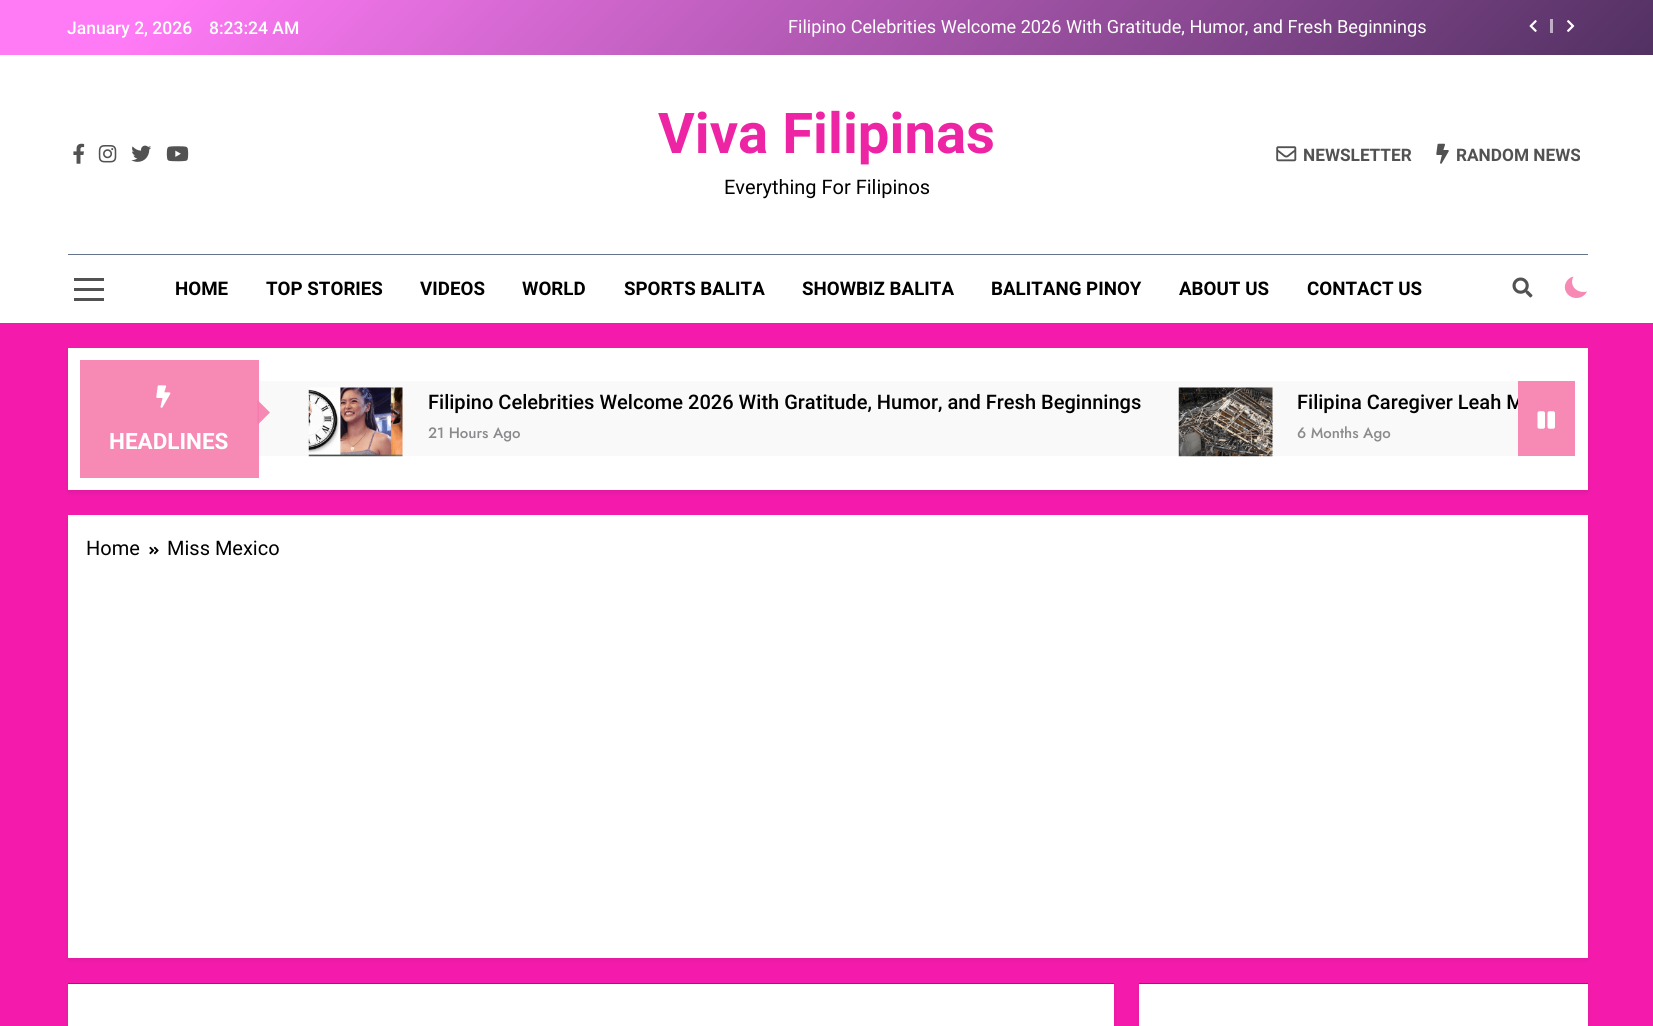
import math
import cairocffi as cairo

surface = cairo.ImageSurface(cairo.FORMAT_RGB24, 1653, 1026)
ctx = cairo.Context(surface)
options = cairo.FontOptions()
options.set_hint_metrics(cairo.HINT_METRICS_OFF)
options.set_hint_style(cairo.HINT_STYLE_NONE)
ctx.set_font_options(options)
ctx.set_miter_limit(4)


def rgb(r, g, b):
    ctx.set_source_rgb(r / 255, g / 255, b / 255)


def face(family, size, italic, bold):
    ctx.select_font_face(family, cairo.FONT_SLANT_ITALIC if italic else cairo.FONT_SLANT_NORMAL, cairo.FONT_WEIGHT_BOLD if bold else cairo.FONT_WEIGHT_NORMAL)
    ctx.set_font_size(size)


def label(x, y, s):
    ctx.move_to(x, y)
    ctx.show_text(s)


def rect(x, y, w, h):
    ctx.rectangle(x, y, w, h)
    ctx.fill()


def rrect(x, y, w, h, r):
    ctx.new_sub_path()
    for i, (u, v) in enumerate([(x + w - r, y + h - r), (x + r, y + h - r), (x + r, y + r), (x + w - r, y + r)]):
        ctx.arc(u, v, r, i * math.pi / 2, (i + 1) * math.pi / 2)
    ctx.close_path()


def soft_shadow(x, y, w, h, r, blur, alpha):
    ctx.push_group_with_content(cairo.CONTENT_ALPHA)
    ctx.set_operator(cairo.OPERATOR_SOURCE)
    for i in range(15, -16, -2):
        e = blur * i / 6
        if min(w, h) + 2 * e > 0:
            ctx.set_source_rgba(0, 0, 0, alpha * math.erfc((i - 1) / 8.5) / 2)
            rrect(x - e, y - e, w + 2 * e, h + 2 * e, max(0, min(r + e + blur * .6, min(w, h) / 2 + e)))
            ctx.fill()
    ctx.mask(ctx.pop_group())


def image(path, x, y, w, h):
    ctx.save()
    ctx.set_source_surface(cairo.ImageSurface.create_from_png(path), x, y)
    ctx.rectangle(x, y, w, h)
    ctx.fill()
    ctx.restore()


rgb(244, 27, 172)
ctx.paint()
gradient = cairo.LinearGradient(400, -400, 1254, 455)
gradient.add_color_stop_rgba(0.1, 1, 0.478, 0.961, 1)
gradient.add_color_stop_rgba(1, 0.318, 0.192, 0.384, 1)
ctx.set_source(gradient)
rect(0, 0, 1653, 55)
face('Roboto Medium', 17.5, 0, 0)
rgb(255, 255, 255)
label(67, 34, 'January 2, 2026')
label(209, 34, '8:23:24 AM')
face('Roboto', 18.15, 0, 0)
label(788, 33, 'Filipino Celebrities Welcome 2026 With Gratitude, Humor, and Fresh Beginnings')
image('image0.png', 1529, 20, 8, 12)
rgb(191, 175, 197)
rect(1550, 19, 3, 14)
image('image1.png', 1567, 20, 8, 12)
rgb(255, 255, 255)
rect(0, 55, 1653, 268)
image('image2.png', 73, 143, 12, 21)
image('image3.png', 98, 145, 19, 18)
image('image4.png', 131, 145, 21, 17)
image('image5.png', 166, 146, 23, 16)
face('Roboto', 56.25, 0, 1)
rgb(237, 37, 164)
label(658, 153, 'Viva Filipinas')
face('Roboto', 20, 0, 0)
rgb(0, 0, 0)
label(724, 194, 'Everything For Filipinos')
image('image6.png', 1276, 146, 21, 16)
face('Roboto', 17.25, 0, 1)
rgb(82, 82, 82)
label(1303, 161, 'NEWSLETTER')
image('image7.png', 1436, 143, 13, 21)
label(1456, 161, 'RANDOM NEWS')
rgb(100, 116, 139)
rect(68, 254, 1520, 1)
rgb(82, 82, 82)
rect(74, 278, 30, 3)
rect(74, 288, 30, 3)
rect(74, 298, 30, 3)
face('Roboto', 18.75, 0, 1)
rgb(0, 0, 0)
label(175, 295, 'HOME')
label(266, 295, 'TOP STORIES')
label(420, 295, 'VIDEOS')
label(522, 295, 'WORLD')
label(624, 295, 'SPORTS BALITA')
label(802, 295, 'SHOWBIZ BALITA')
label(991, 295, 'BALITANG PINOY')
label(1179, 295, 'ABOUT US')
label(1307, 295, 'CONTACT US')
image('image8.png', 1512, 277, 21, 21)
rgb(246, 138, 181)
ctx.new_path()
ctx.move_to(1587, 291.5)
ctx.curve_to(1577.5, 294, 1568.5, 286, 1573.5, 276.5)
ctx.curve_to(1570.5, 277, 1568, 279, 1566.5, 281.5)
ctx.curve_to(1565, 284, 1564.5, 286.5, 1565, 289)
ctx.curve_to(1567.5, 300, 1582.5, 301, 1587, 291.5)
ctx.close_path()
ctx.fill()
rgb(0, 0, 0)
soft_shadow(68, 350, 1520, 143, 0, 2.5, 0.08)
rgb(255, 255, 255)
rect(68, 348, 1520, 142)
rgb(246, 138, 181)
rect(80, 360, 179, 118)
image('image9.png', 156, 385, 15, 23)
rgb(249, 249, 249)
rect(259, 381, 1259, 75)
ctx.set_source_rgba(0.961, 0.486, 0.675, 0.89)
ctx.new_path()
ctx.move_to(257.5, 425)
ctx.line_to(257.5, 400)
ctx.line_to(270, 412.5)
ctx.close_path()
ctx.fill()
face('Roboto', 22.5, 0, 1)
rgb(255, 255, 255)
label(109, 449, 'HEADLINES')
image('image10.png', 308, 387, 95, 70)
face('Roboto Medium', 20.05, 0, 0)
rgb(0, 0, 0)
label(428, 409, 'Filipino Celebrities Welcome 2026 With Gratitude, Humor, and Fresh Beginnings')
face('Jost Medium', 15, 0, 0)
rgb(138, 138, 140)
label(428, 438, '21 Hours Ago')
image('image11.png', 1178, 387, 95, 70)
ctx.save()
ctx.rectangle(1298, 390, 220, 24)
ctx.clip()
face('Roboto Medium', 20.05, 0, 0)
rgb(0, 0, 0)
label(1297, 409, 'Filipina Caregiver Leah M')
ctx.restore()
label(1297, 438, '6 Months Ago')
rgb(246, 138, 181)
rect(1518, 381, 57, 75)
image('image12.png', 1537, 411, 18, 18)
rgb(0, 0, 0)
soft_shadow(68, 518, 1520, 442, 0, 2.5, 0.08)
rgb(255, 255, 255)
rect(68, 515, 1520, 443)
face('Roboto', 20, 0, 0)
rgb(0, 0, 0)
label(86, 555, 'Home')
image('image13.png', 149, 546, 10, 9)
label(167, 555, 'Miss Mexico')
rgb(0, 0, 0)
soft_shadow(68, 986, 1046, 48, 0, 2.5, 0.08)
rgb(255, 255, 255)
rect(68, 984, 1046, 42)
rgb(172, 19, 121)
rect(68, 983, 1046, 1)
rgb(0, 0, 0)
soft_shadow(1139, 986, 449, 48, 0, 2.5, 0.08)
rgb(255, 255, 255)
rect(1139, 984, 449, 42)
rgb(172, 19, 121)
rect(1139, 983, 449, 1)
surface.write_to_png('render.png')
